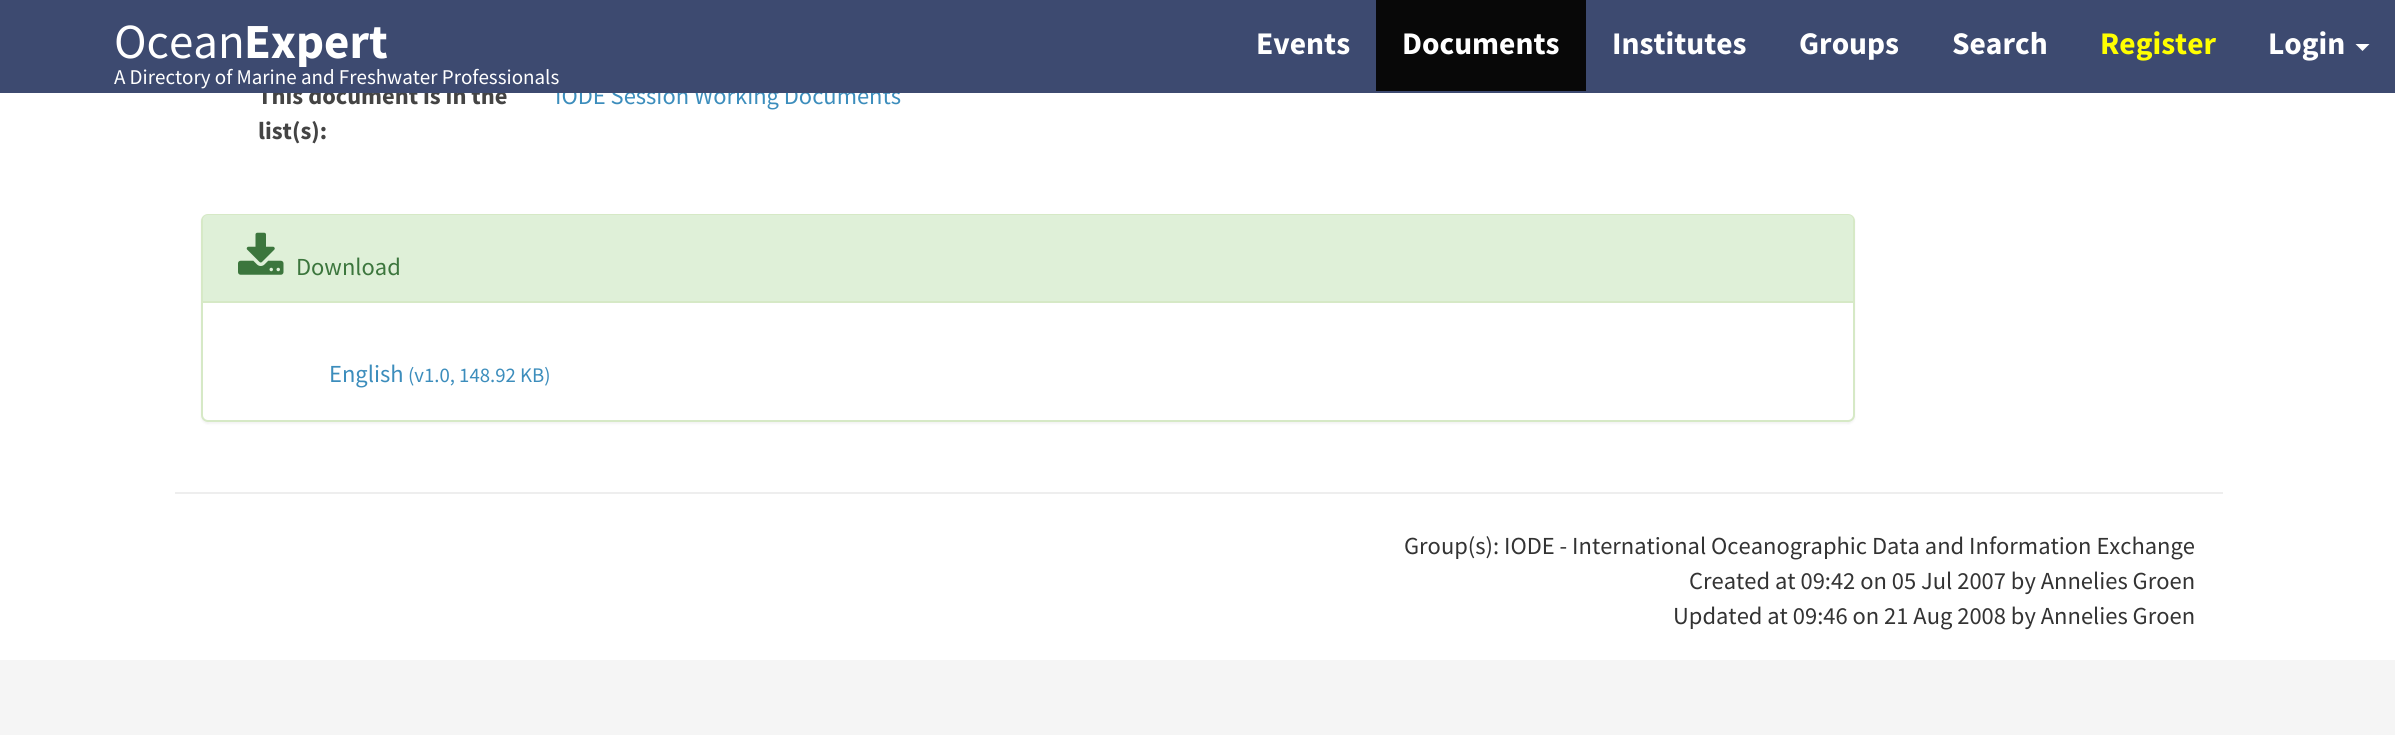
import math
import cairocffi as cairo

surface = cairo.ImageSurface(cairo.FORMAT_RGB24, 2395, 735)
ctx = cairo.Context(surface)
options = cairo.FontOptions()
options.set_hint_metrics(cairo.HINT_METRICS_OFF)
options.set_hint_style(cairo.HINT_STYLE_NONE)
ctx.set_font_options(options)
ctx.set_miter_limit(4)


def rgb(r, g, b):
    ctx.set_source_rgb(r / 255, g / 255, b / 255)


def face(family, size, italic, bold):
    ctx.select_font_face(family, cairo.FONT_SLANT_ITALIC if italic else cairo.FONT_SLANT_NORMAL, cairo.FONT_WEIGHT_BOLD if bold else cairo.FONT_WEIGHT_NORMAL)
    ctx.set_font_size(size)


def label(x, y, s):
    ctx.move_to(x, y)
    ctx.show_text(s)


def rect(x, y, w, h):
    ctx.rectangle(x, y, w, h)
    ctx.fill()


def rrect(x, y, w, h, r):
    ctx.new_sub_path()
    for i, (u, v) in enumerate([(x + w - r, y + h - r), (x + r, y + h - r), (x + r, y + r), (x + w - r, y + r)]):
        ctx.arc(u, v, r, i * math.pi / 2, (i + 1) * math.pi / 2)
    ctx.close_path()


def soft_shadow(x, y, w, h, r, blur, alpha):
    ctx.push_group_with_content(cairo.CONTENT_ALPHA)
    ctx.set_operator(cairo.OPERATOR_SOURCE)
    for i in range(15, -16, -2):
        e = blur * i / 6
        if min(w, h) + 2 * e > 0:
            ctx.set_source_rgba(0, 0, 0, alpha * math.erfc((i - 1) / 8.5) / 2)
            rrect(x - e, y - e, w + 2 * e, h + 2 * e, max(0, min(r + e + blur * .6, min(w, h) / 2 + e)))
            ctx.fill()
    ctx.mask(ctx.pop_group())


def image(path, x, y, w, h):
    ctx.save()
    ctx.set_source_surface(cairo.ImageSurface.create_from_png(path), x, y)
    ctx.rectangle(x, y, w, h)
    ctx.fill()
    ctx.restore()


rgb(255, 255, 255)
ctx.paint()
face('Source Sans Pro', 24.5, 0, 1)
rgb(68, 68, 68)
label(258, 104, 'This document is in the')
face('Source Sans Pro', 24.5, 0, 0)
rgb(60, 141, 188)
label(555, 104, 'IODE Session Working Documents')
rgb(61, 74, 112)
rect(0, 0, 2395, 93)
face('Source Sans Pro', 49, 0, 0)
rgb(255, 255, 255)
label(114, 58, 'Ocean')
face('Source Sans Pro', 49, 0, 1)
label(244, 58, 'Expert')
face('Source Sans Pro', 21, 0, 0)
label(114, 84, 'A Directory of Marine and Freshwater Professionals')
face('Source Sans Pro', 31.5, 0, 1)
label(1256, 54, 'Events')
rgb(8, 8, 8)
rect(1376, 0, 210, 91)
rgb(255, 255, 255)
label(1402, 54, 'Documents')
label(1612, 54, 'Institutes')
label(1799, 54, 'Groups')
label(1952, 54, 'Search')
rgb(255, 255, 0)
label(2100, 54, 'Register')
rgb(255, 255, 255)
label(2268, 54, 'Login')
ctx.new_path()
ctx.move_to(2355.5, 44)
ctx.line_to(2369.5, 44)
ctx.line_to(2362.5, 51)
ctx.close_path()
ctx.fill()
face('Source Sans Pro', 24.5, 0, 1)
rgb(68, 68, 68)
label(258, 139, 'list(s):')
rgb(0, 0, 0)
soft_shadow(201, 215, 1654, 209, 7, 1, 0.05)
rgb(255, 255, 255)
rrect(202, 215, 1652, 206, 6)
ctx.fill_preserve()
rgb(214, 233, 198)
ctx.stroke()
rgb(223, 240, 216)
ctx.new_path()
ctx.move_to(208, 215)
ctx.line_to(1848, 215)
ctx.curve_to(1851, 215, 1853, 217, 1853, 220)
ctx.line_to(1853, 303)
ctx.line_to(203, 303)
ctx.line_to(203, 220)
ctx.curve_to(203, 217, 205, 215, 208, 215)
ctx.close_path()
ctx.fill()
rgb(214, 233, 198)
rect(203, 301, 1650, 2)
image('image0.png', 238, 232, 46, 43)
face('Source Sans Pro', 24.5, 0, 0)
rgb(60, 118, 61)
label(296, 275, 'Download')
rgb(60, 141, 188)
label(329, 382, 'English')
face('Source Sans Pro', 20.75, 0, 0)
label(408, 382, '(v1.0, 148.92 KB)')
rgb(238, 238, 238)
rect(175, 492, 2048, 2)
face('Source Sans Pro', 24.5, 0, 0)
rgb(51, 51, 51)
label(1404, 554, 'Group(s): IODE - International Oceanographic Data and Information Exchange')
label(1689, 589, 'Created at 09:42 on 05 Jul 2007 by Annelies Groen')
label(1673, 624, 'Updated at 09:46 on 21 Aug 2008 by Annelies Groen')
rgb(245, 245, 245)
rect(0, 660, 2395, 75)
surface.write_to_png('render.png')
